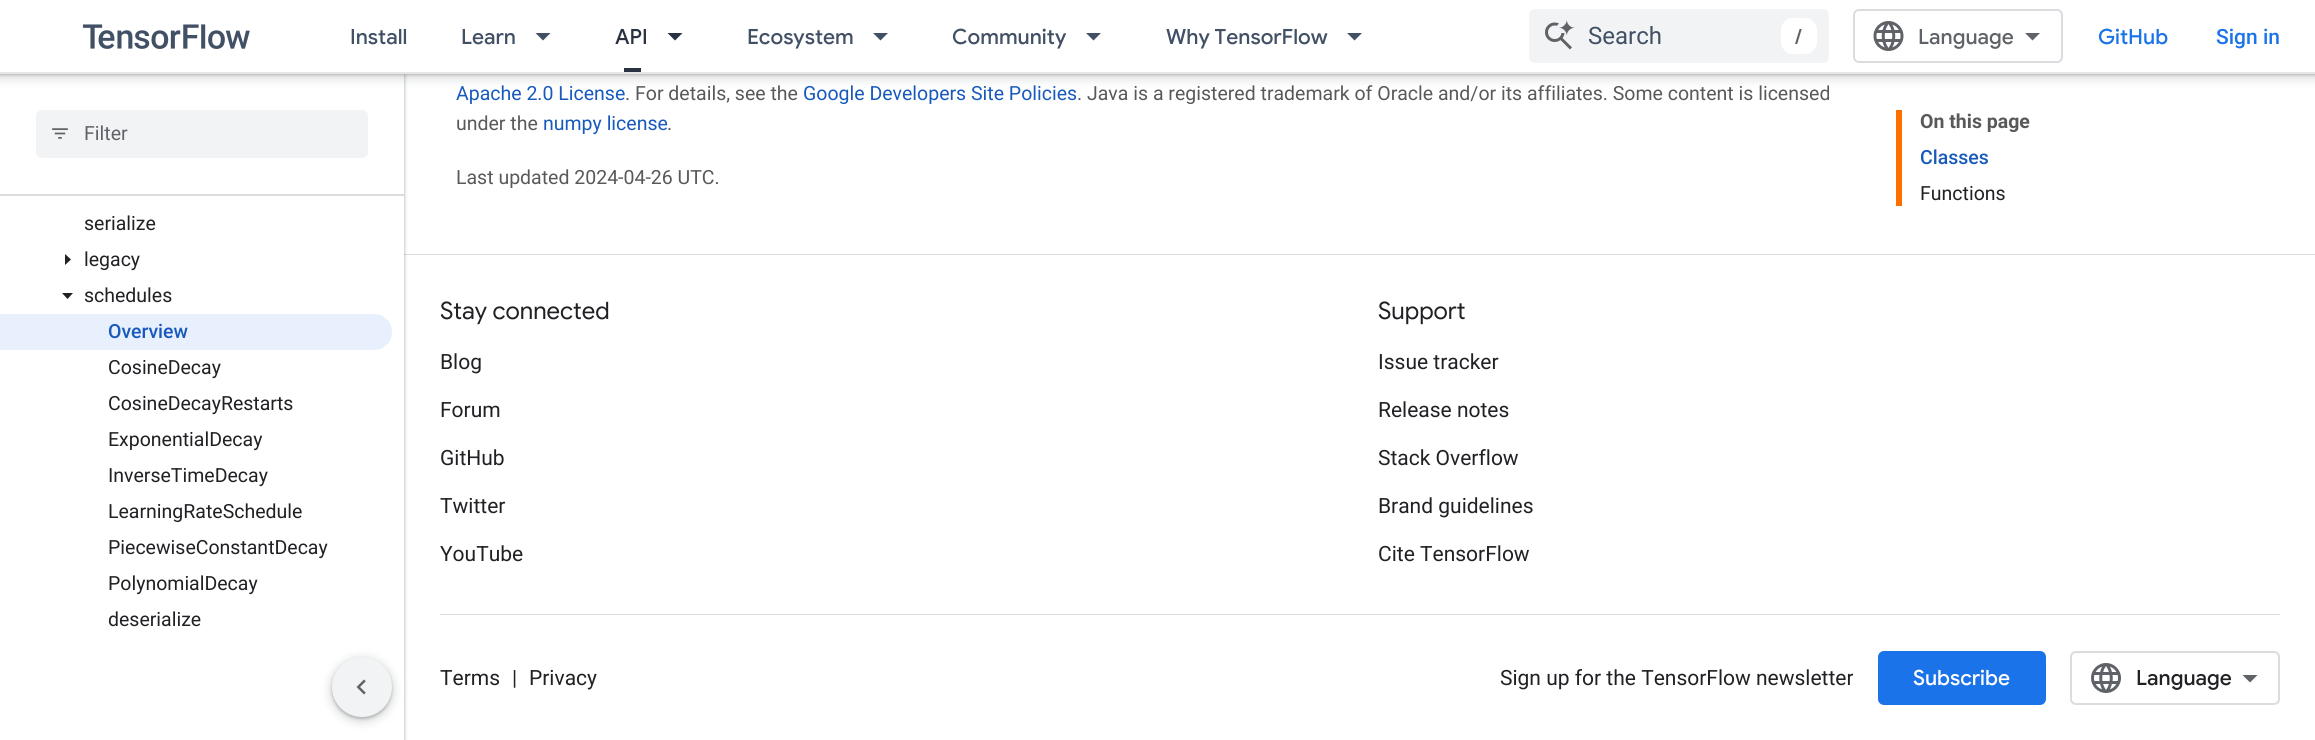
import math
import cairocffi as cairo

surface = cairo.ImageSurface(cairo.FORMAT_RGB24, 2315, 740)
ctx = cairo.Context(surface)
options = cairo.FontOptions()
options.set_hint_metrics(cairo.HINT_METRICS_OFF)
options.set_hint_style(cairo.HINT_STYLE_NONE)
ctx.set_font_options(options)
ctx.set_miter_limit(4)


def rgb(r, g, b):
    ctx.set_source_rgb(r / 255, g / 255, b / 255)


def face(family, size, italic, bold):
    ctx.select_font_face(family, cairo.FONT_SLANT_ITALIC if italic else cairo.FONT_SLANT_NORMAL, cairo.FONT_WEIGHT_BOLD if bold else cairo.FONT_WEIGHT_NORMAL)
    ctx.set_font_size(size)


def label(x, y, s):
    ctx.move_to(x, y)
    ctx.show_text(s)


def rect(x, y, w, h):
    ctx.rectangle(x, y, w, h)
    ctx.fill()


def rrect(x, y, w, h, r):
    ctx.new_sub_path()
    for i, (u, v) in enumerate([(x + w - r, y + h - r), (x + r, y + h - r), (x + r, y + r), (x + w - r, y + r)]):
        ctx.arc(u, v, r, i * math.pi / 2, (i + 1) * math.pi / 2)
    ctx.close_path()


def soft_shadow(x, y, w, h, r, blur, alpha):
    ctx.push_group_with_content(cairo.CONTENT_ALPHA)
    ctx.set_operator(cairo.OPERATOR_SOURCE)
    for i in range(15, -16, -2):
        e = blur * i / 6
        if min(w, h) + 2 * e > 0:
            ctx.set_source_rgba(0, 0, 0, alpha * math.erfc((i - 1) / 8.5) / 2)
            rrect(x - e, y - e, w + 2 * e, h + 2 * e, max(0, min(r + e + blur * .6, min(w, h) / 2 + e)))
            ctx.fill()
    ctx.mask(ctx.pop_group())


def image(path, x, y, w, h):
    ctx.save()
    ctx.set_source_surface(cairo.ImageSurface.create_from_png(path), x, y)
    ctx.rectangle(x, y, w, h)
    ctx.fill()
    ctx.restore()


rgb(255, 255, 255)
ctx.paint()
rgb(218, 220, 224)
rect(404, 254, 1911, 1)
rgb(60, 64, 67)
soft_shadow(-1, 0, 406, 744, 0, 2, 0.15)
soft_shadow(0, 2, 404, 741, 0, 1.5, 0.3)
rgb(255, 255, 255)
rect(0, 196, 404, 544)
rect(0, 74, 404, 120)
rgb(60, 64, 67)
soft_shadow(-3, -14, 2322, 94, 0, 4.5, 0.15)
soft_shadow(0, -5, 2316, 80, 0, 1.5, 0.3)
rgb(255, 255, 255)
rect(0, 0, 2315, 72)
rgb(230, 230, 230)
rect(0, 72, 2315, 2)
image('image0.png', 82, 24, 168, 25)
face('Google Sans Medium', 21, 0, 0)
rgb(66, 80, 102)
label(350, 44, 'Install')
label(461, 44, 'Learn')
ctx.new_path()
ctx.move_to(535.5, 33)
ctx.line_to(550.5, 33)
ctx.line_to(543, 40.5)
ctx.close_path()
ctx.fill()
rgb(41, 50, 65)
label(615, 44, 'API')
rect(624, 68, 17, 4)
ctx.new_path()
ctx.move_to(667.5, 33)
ctx.line_to(682.5, 33)
ctx.line_to(675, 40.5)
ctx.close_path()
ctx.fill()
rgb(66, 80, 102)
label(747, 44, 'Ecosystem')
ctx.new_path()
ctx.move_to(873, 33)
ctx.line_to(888, 33)
ctx.line_to(880.5, 40.5)
ctx.close_path()
ctx.fill()
label(952, 44, 'Community')
ctx.new_path()
ctx.move_to(1086, 33)
ctx.line_to(1101, 33)
ctx.line_to(1093.5, 40.5)
ctx.close_path()
ctx.fill()
label(1166, 44, 'Why TensorFlow')
ctx.new_path()
ctx.move_to(1347, 33)
ctx.line_to(1362, 33)
ctx.line_to(1354.5, 40.5)
ctx.close_path()
ctx.fill()
rgb(241, 243, 244)
rrect(1529, 9, 300, 54, 6)
ctx.fill()
image('image1.png', 1545, 20, 30, 30)
face('Roboto', 24, 0, 0)
rgb(66, 80, 102)
label(1588, 44, 'Search')
rgb(255, 255, 255)
rrect(1781, 18, 36, 36, 12)
ctx.fill()
face('Google Sans Medium', 21, 0, 0)
rgb(95, 99, 104)
label(1795, 44, '/')
rrect(1854, 10, 208, 52, 5)
rgb(218, 220, 224)
ctx.stroke()
image('image2.png', 1873, 21, 31, 30)
rgb(95, 99, 104)
label(1918, 44, 'Language')
ctx.new_path()
ctx.move_to(2032.5, 40.5)
ctx.line_to(2025, 33)
ctx.line_to(2040, 33)
ctx.close_path()
ctx.fill()
rgb(26, 115, 232)
label(2098, 44, 'GitHub')
face('Roboto Medium', 21, 0, 0)
label(2216, 44, 'Sign in')
rgb(218, 220, 224)
rect(0, 194, 404, 2)
rgb(241, 243, 244)
rrect(36, 110, 332, 48, 6)
ctx.fill()
image('image3.png', 52, 128, 16, 11)
face('Roboto', 19.5, 0, 0)
rgb(95, 99, 104)
label(84, 140, 'Filter')
rgb(32, 33, 36)
label(84, 230, 'serialize')
ctx.new_path()
ctx.move_to(65, 265)
ctx.line_to(65, 254)
ctx.line_to(71, 259.5)
ctx.close_path()
ctx.fill()
label(84, 266, 'legacy')
ctx.new_path()
ctx.move_to(62, 293)
ctx.line_to(73, 293)
ctx.line_to(67.5, 299)
ctx.close_path()
ctx.fill()
label(84, 302, 'schedules')
rgb(232, 240, 254)
ctx.new_path()
ctx.move_to(0, 314)
ctx.line_to(374, 314)
ctx.curve_to(384, 314, 392, 322, 392, 332)
ctx.curve_to(392, 342, 384, 350, 374, 350)
ctx.line_to(0, 350)
ctx.close_path()
ctx.fill()
face('Roboto Medium', 19.5, 0, 0)
rgb(24, 90, 188)
label(108, 338, 'Overview')
face('Roboto', 19.5, 0, 0)
rgb(32, 33, 36)
label(108, 374, 'CosineDecay')
label(108, 410, 'CosineDecayRestarts')
label(108, 446, 'ExponentialDecay')
label(108, 482, 'InverseTimeDecay')
label(108, 518, 'LearningRateSchedule')
label(108, 554, 'PiecewiseConstantDecay')
label(108, 590, 'PolynomialDecay')
label(108, 626, 'deserialize')
rgb(24, 90, 188)
label(456, 100, 'Apache 2.0 License')
rgb(89, 89, 89)
label(625, 100, '. For details, see the')
rgb(24, 90, 188)
label(803, 100, 'Google Developers Site Policies')
rgb(89, 89, 89)
label(1077, 100, '. Java is a registered trademark of Oracle and/or its affiliates. Some content is licensed')
label(456, 130, 'under the')
rgb(24, 90, 188)
label(543, 130, 'numpy license')
rgb(89, 89, 89)
label(667, 130, '.')
label(456, 184, 'Last updated 2024-04-26 UTC.')
rgb(255, 111, 0)
rect(1896, 110, 6, 96)
face('Roboto', 19.5, 0, 1)
rgb(89, 89, 89)
label(1920, 128, 'On this page')
face('Roboto Medium', 19.5, 0, 0)
rgb(24, 90, 188)
label(1920, 164, 'Classes')
face('Roboto', 19.5, 0, 0)
rgb(32, 33, 36)
label(1920, 200, 'Functions')
rgb(218, 220, 224)
rect(440, 614, 1840, 1)
face('Google Sans', 24, 0, 0)
rgb(32, 33, 36)
label(440, 319, 'Stay connected')
face('Roboto', 21, 0, 0)
label(440, 369, 'Blog')
label(440, 417, 'Forum')
label(440, 465, 'GitHub')
label(440, 513, 'Twitter')
label(440, 561, 'YouTube')
face('Google Sans', 24, 0, 0)
label(1378, 319, 'Support')
face('Roboto', 21, 0, 0)
label(1378, 369, 'Issue tracker')
label(1378, 417, 'Release notes')
label(1378, 465, 'Stack Overflow')
label(1378, 513, 'Brand guidelines')
label(1378, 561, 'Cite TensorFlow')
label(440, 685, 'Terms')
label(512, 685, '|')
label(529, 685, 'Privacy')
label(1500, 685, 'Sign up for the TensorFlow newsletter')
rgb(26, 115, 232)
rrect(1878, 651, 168, 54, 6)
ctx.fill()
face('Google Sans Medium', 21, 0, 0)
rgb(255, 255, 255)
label(1913, 685, 'Subscribe')
rrect(2071, 652, 208, 52, 5)
rgb(218, 220, 224)
ctx.stroke()
image('image4.png', 2091, 663, 30, 30)
rgb(32, 33, 36)
label(2136, 685, 'Language')
rgb(95, 99, 104)
ctx.new_path()
ctx.move_to(2250, 682.5)
ctx.line_to(2242.5, 675)
ctx.line_to(2257.5, 675)
ctx.close_path()
ctx.fill()
rgb(60, 64, 67)
soft_shadow(329, 657, 66, 66, 33, 4.5, 0.15)
soft_shadow(332, 659, 60, 60, 30, 1.5, 0.3)
rgb(241, 243, 244)
ctx.arc(362, 687, 30, 0, 2 * math.pi)
ctx.fill()
image('image5.png', 356, 679, 10, 16)
surface.write_to_png('render.png')
